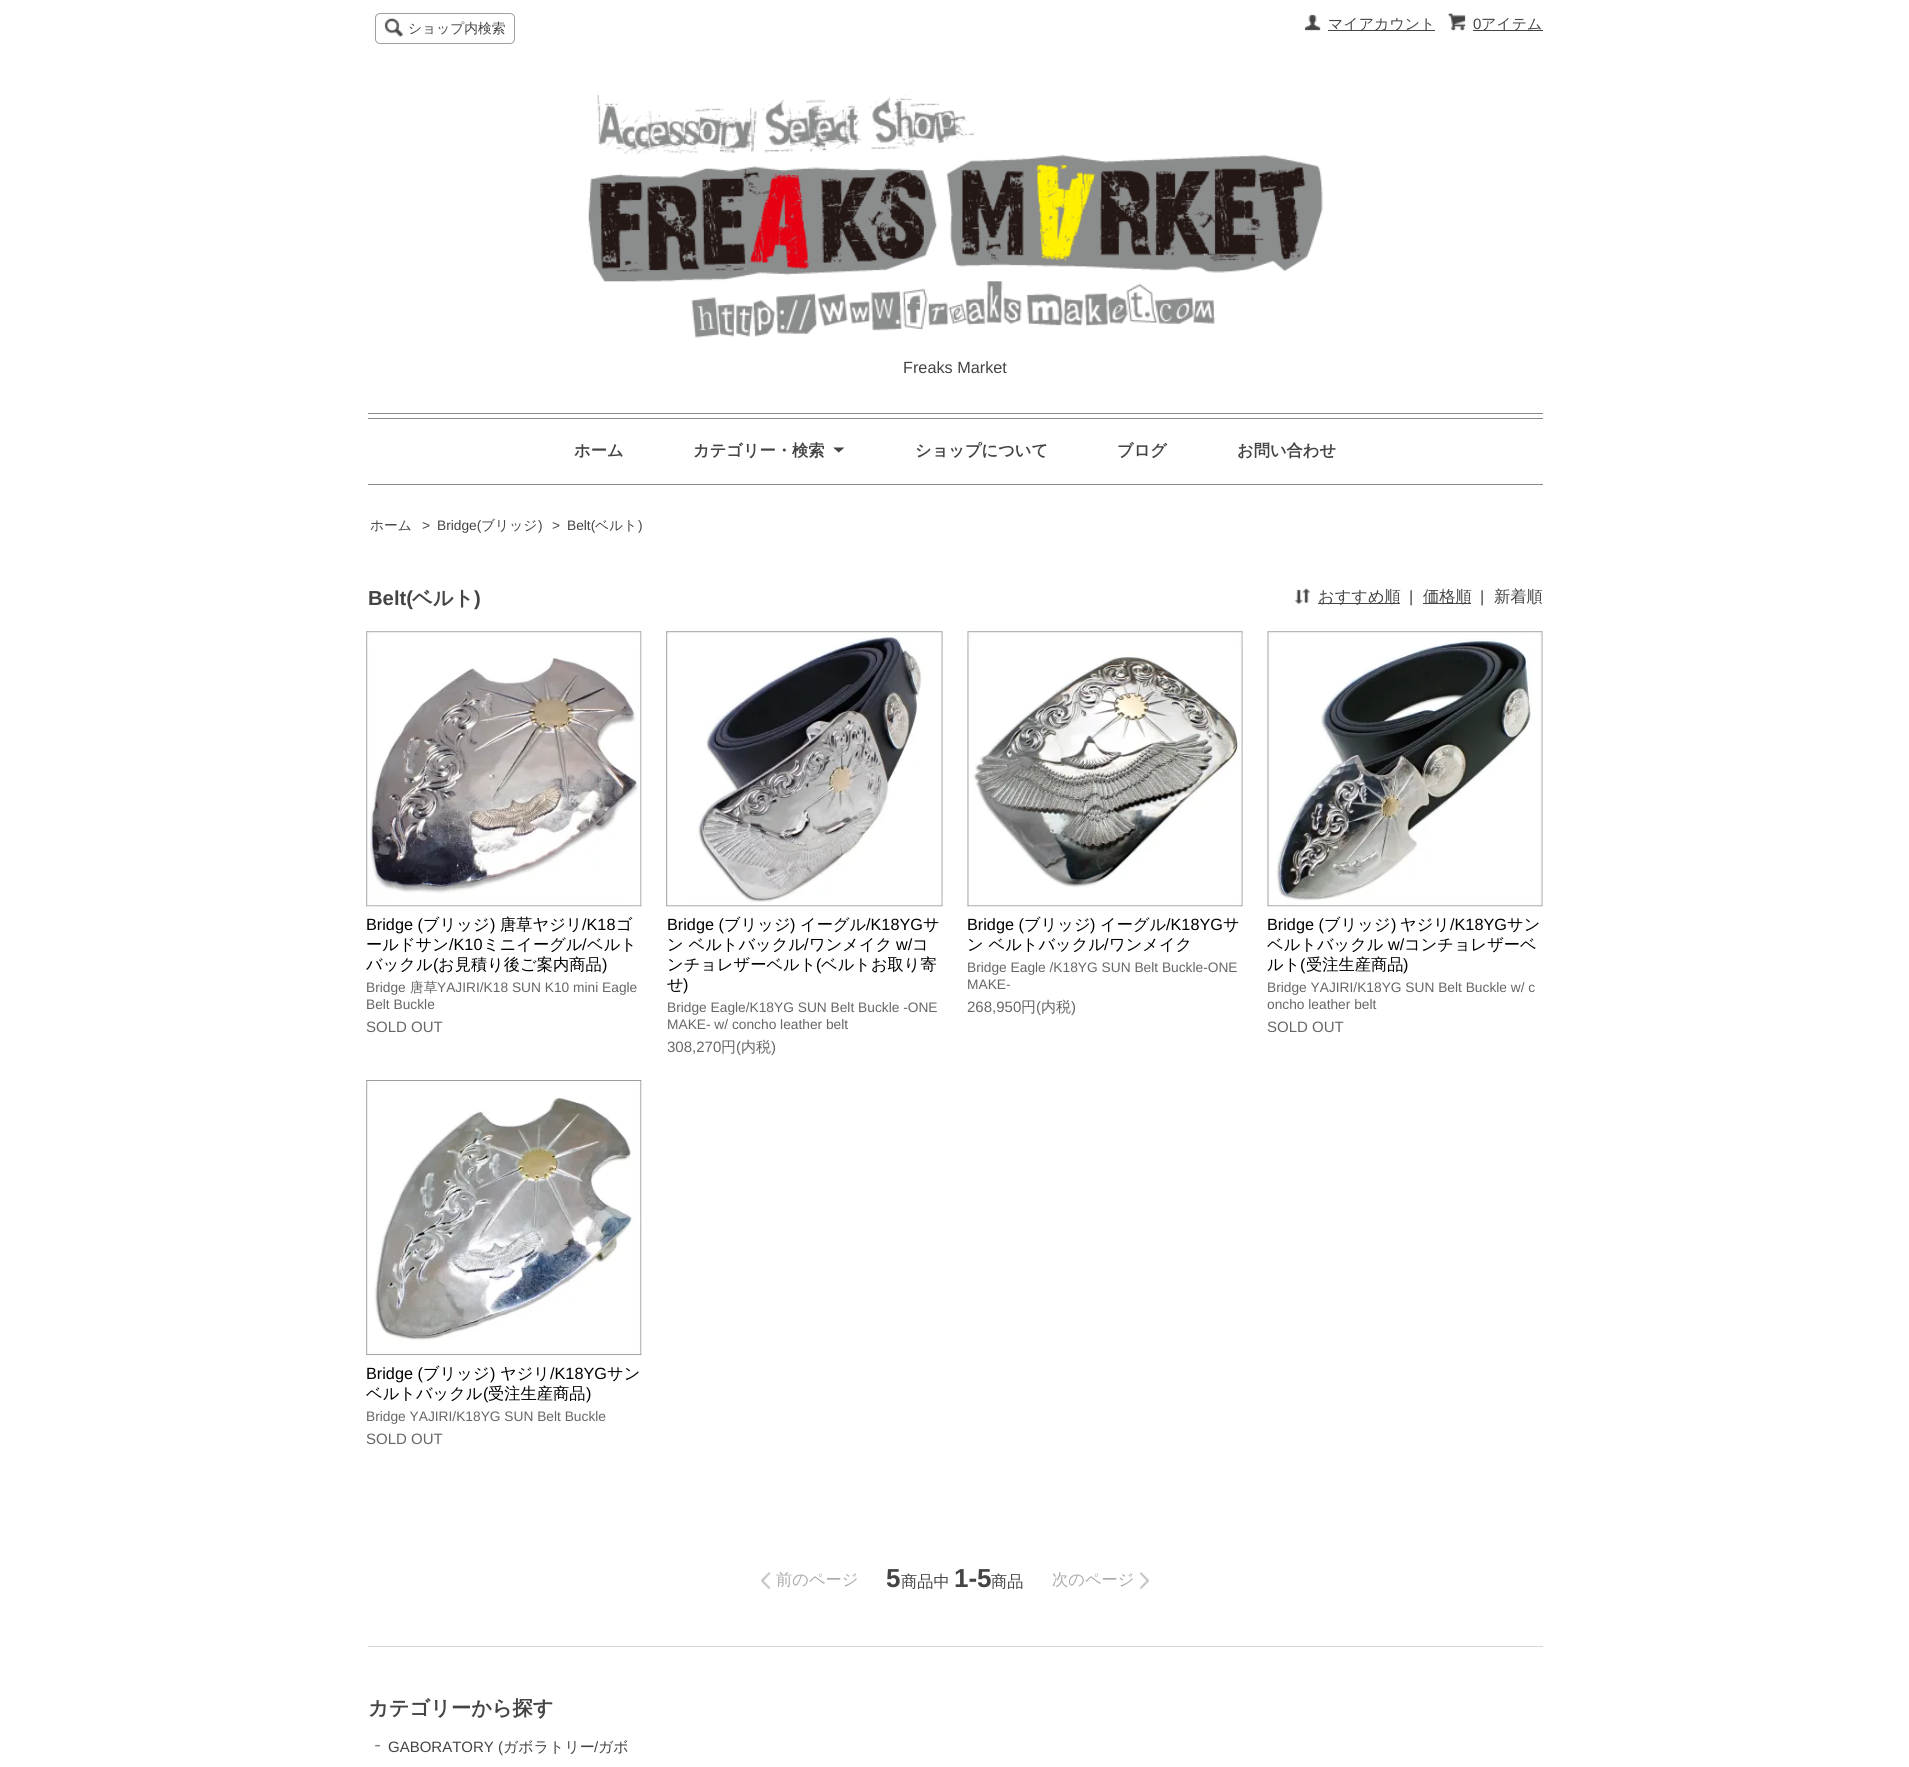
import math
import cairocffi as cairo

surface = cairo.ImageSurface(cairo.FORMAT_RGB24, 1909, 1767)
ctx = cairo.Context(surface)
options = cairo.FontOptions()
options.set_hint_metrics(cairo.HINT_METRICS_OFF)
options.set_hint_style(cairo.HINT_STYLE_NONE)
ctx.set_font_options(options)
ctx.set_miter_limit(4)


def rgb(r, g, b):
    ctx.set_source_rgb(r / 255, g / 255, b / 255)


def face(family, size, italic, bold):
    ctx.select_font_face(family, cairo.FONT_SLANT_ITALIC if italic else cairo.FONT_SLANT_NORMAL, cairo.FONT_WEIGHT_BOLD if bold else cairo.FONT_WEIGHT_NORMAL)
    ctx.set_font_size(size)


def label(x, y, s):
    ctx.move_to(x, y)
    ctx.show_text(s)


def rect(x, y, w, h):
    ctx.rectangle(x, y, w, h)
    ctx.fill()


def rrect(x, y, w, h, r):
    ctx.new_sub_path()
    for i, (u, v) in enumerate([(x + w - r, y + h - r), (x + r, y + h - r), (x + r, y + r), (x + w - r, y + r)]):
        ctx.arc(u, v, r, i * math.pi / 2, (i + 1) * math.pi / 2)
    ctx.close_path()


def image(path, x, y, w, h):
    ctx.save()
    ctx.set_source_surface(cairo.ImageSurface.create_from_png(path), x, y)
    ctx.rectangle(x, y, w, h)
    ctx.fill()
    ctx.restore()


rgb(255, 255, 255)
ctx.paint()
rrect(375.5, 13.5, 139, 30, 4.5)
rgb(160, 160, 160)
ctx.set_line_width(1)
ctx.stroke()
image('image0.png', 384, 18, 19, 19)
face('WenQuanYi Zen Hei Medium', 13.75, 0, 0)
rgb(68, 68, 68)
label(408, 33, 'ショップ内検索')
image('image1.png', 1304, 14, 17, 17)
rect(1328, 30, 107, 1)
face('WenQuanYi Zen Hei Medium', 15, 0, 0)
label(1328, 29, 'マイアカウント')
image('image2.png', 1448, 13, 18, 18)
face('Liberation Sans', 15, 0, 0)
label(1473, 29, '0')
rect(1473, 30, 70, 1)
face('WenQuanYi Zen Hei Medium', 15, 0, 0)
label(1481, 29, 'アイテム')
rgb(136, 136, 136)
rect(368, 413, 1175, 1)
image('image3.png', 588, 95, 735, 243)
face('Liberation Sans', 16.25, 0, 0)
rgb(68, 68, 68)
label(903, 373, 'Freaks Market')
rgb(136, 136, 136)
rect(368, 418, 1175, 1)
rect(368, 484, 1175, 1)
face('WenQuanYi Zen Hei', 16.25, 0, 1)
rgb(68, 68, 68)
label(574, 456, 'ホーム')
label(693, 456, 'カテゴリー・検索')
image('image4.png', 833, 447, 12, 6)
label(915, 456, 'ショップについて')
label(1117, 456, 'ブログ')
label(1237, 456, 'お問い合わせ')
face('WenQuanYi Zen Hei Medium', 13.75, 0, 0)
label(370, 530, 'ホーム')
face('Liberation Sans', 13.75, 0, 0)
label(422, 530, '>')
label(437, 530, 'Bridge(')
face('WenQuanYi Zen Hei Medium', 13.75, 0, 0)
label(481, 530, 'ブリッジ')
face('Liberation Sans', 13.75, 0, 0)
label(538, 530, ')')
label(552, 530, '>')
label(567, 530, 'Belt(')
face('WenQuanYi Zen Hei Medium', 13.75, 0, 0)
label(595, 530, 'ベルト')
face('Liberation Sans', 13.75, 0, 0)
label(638, 530, ')')
face('Liberation Sans', 20.25, 0, 1)
label(368, 605, 'Belt(')
face('WenQuanYi Zen Hei', 20.25, 0, 1)
label(412, 605, 'ベルト')
face('Liberation Sans', 20.25, 0, 1)
label(474, 605, ')')
image('image5.png', 1294, 588, 17, 16)
rect(1318, 603, 82, 1)
face('WenQuanYi Zen Hei Medium', 16.25, 0, 0)
label(1318, 602, 'おすすめ順')
face('Liberation Sans', 16.25, 0, 0)
label(1409, 602, '|')
rect(1423, 603, 48, 1)
face('WenQuanYi Zen Hei Medium', 16.25, 0, 0)
label(1423, 602, '価格順')
face('Liberation Sans', 16.25, 0, 0)
label(1480, 602, '|')
face('WenQuanYi Zen Hei Medium', 16.25, 0, 0)
label(1494, 602, '新着順')
image('image6.png', 366, 631, 276, 276)
face('Liberation Sans', 16.25, 0, 0)
rgb(0, 0, 0)
label(366, 930, 'Bridge (')
face('WenQuanYi Zen Hei Medium', 16.25, 0, 0)
label(423, 930, 'ブリッジ')
face('Liberation Sans', 16.25, 0, 0)
label(490, 930, ')')
face('WenQuanYi Zen Hei Medium', 16.25, 0, 0)
label(500, 930, '唐草ヤジリ')
face('Liberation Sans', 16.25, 0, 0)
label(582, 930, '/K18')
face('WenQuanYi Zen Hei Medium', 16.25, 0, 0)
label(616, 930, 'ゴ')
label(366, 950, 'ールドサン')
face('Liberation Sans', 16.25, 0, 0)
label(449, 950, '/K10')
face('WenQuanYi Zen Hei Medium', 16.25, 0, 0)
label(483, 950, 'ミニイーグル')
face('Liberation Sans', 16.25, 0, 0)
label(582, 950, '/')
face('WenQuanYi Zen Hei Medium', 16.25, 0, 0)
label(587, 950, 'ベルト')
label(366, 970, 'バックル')
face('Liberation Sans', 16.25, 0, 0)
label(433, 970, '(')
face('WenQuanYi Zen Hei Medium', 16.25, 0, 0)
label(438, 970, 'お見積り後ご案内商品')
face('Liberation Sans', 16.25, 0, 0)
label(602, 970, ')')
face('Liberation Sans', 13.75, 0, 0)
rgb(102, 102, 102)
label(366, 992, 'Bridge')
face('WenQuanYi Zen Hei Medium', 13.75, 0, 0)
label(410, 992, '唐草')
face('Liberation Sans', 13.75, 0, 0)
label(437, 992, 'YAJIRI/K18 SUN K10 mini Eagle')
label(366, 1009, 'Belt Buckle')
face('Liberation Sans', 15, 0, 0)
label(366, 1032, 'SOLD OUT')
image('image7.png', 666, 631, 277, 276)
face('Liberation Sans', 16.25, 0, 0)
rgb(0, 0, 0)
label(667, 930, 'Bridge (')
face('WenQuanYi Zen Hei Medium', 16.25, 0, 0)
label(724, 930, 'ブリッジ')
face('Liberation Sans', 16.25, 0, 0)
label(790, 930, ')')
face('WenQuanYi Zen Hei Medium', 16.25, 0, 0)
label(800, 930, 'イーグル')
face('Liberation Sans', 16.25, 0, 0)
label(866, 930, '/K18YG')
face('WenQuanYi Zen Hei Medium', 16.25, 0, 0)
label(923, 930, 'サ')
label(667, 950, 'ン ベルトバックル')
face('Liberation Sans', 16.25, 0, 0)
label(804, 950, '/')
face('WenQuanYi Zen Hei Medium', 16.25, 0, 0)
label(809, 950, 'ワンメイク')
face('Liberation Sans', 16.25, 0, 0)
label(896, 950, 'w/')
face('WenQuanYi Zen Hei Medium', 16.25, 0, 0)
label(912, 950, 'コ')
label(667, 970, 'ンチョレザーベルト')
face('Liberation Sans', 16.25, 0, 0)
label(816, 970, '(')
face('WenQuanYi Zen Hei Medium', 16.25, 0, 0)
label(821, 970, 'ベルトお取り寄')
label(667, 990, 'せ')
face('Liberation Sans', 16.25, 0, 0)
label(683, 990, ')')
face('Liberation Sans', 13.75, 0, 0)
rgb(102, 102, 102)
label(667, 1012, 'Bridge Eagle/K18YG SUN Belt Buckle -ONE')
label(667, 1029, 'MAKE- w/ concho leather belt')
face('Liberation Sans', 15, 0, 0)
label(667, 1052, '308,270')
face('WenQuanYi Zen Hei Medium', 15, 0, 0)
label(721, 1052, '円')
face('Liberation Sans', 15, 0, 0)
label(736, 1052, '(')
face('WenQuanYi Zen Hei Medium', 15, 0, 0)
label(741, 1052, '内税')
face('Liberation Sans', 15, 0, 0)
label(771, 1052, ')')
image('image8.png', 967, 631, 276, 276)
face('Liberation Sans', 16.25, 0, 0)
rgb(0, 0, 0)
label(967, 930, 'Bridge (')
face('WenQuanYi Zen Hei Medium', 16.25, 0, 0)
label(1024, 930, 'ブリッジ')
face('Liberation Sans', 16.25, 0, 0)
label(1090, 930, ')')
face('WenQuanYi Zen Hei Medium', 16.25, 0, 0)
label(1100, 930, 'イーグル')
face('Liberation Sans', 16.25, 0, 0)
label(1166, 930, '/K18YG')
face('WenQuanYi Zen Hei Medium', 16.25, 0, 0)
label(1223, 930, 'サ')
label(967, 950, 'ン ベルトバックル')
face('Liberation Sans', 16.25, 0, 0)
label(1104, 950, '/')
face('WenQuanYi Zen Hei Medium', 16.25, 0, 0)
label(1109, 950, 'ワンメイク')
face('Liberation Sans', 13.75, 0, 0)
rgb(102, 102, 102)
label(967, 972, 'Bridge Eagle /K18YG SUN Belt Buckle-ONE')
label(967, 989, 'MAKE-')
face('Liberation Sans', 15, 0, 0)
label(967, 1012, '268,950')
face('WenQuanYi Zen Hei Medium', 15, 0, 0)
label(1021, 1012, '円')
face('Liberation Sans', 15, 0, 0)
label(1036, 1012, '(')
face('WenQuanYi Zen Hei Medium', 15, 0, 0)
label(1041, 1012, '内税')
face('Liberation Sans', 15, 0, 0)
label(1071, 1012, ')')
image('image9.png', 1267, 631, 276, 276)
face('Liberation Sans', 16.25, 0, 0)
rgb(0, 0, 0)
label(1267, 930, 'Bridge (')
face('WenQuanYi Zen Hei Medium', 16.25, 0, 0)
label(1324, 930, 'ブリッジ')
face('Liberation Sans', 16.25, 0, 0)
label(1391, 930, ')')
face('WenQuanYi Zen Hei Medium', 16.25, 0, 0)
label(1400, 930, 'ヤジリ')
face('Liberation Sans', 16.25, 0, 0)
label(1450, 930, '/K18YG')
face('WenQuanYi Zen Hei Medium', 16.25, 0, 0)
label(1507, 930, 'サン')
label(1267, 950, 'ベルトバックル')
face('Liberation Sans', 16.25, 0, 0)
label(1388, 950, 'w/')
face('WenQuanYi Zen Hei Medium', 16.25, 0, 0)
label(1404, 950, 'コンチョレザーベ')
label(1267, 970, 'ルト')
face('Liberation Sans', 16.25, 0, 0)
label(1300, 970, '(')
face('WenQuanYi Zen Hei Medium', 16.25, 0, 0)
label(1306, 970, '受注生産商品')
face('Liberation Sans', 16.25, 0, 0)
label(1403, 970, ')')
face('Liberation Sans', 13.75, 0, 0)
rgb(102, 102, 102)
label(1267, 992, 'Bridge YAJIRI/K18YG SUN Belt Buckle w/ c')
label(1267, 1009, 'oncho leather belt')
face('Liberation Sans', 15, 0, 0)
label(1267, 1032, 'SOLD OUT')
image('image10.png', 366, 1080, 276, 275)
face('Liberation Sans', 16.25, 0, 0)
rgb(0, 0, 0)
label(366, 1379, 'Bridge (')
face('WenQuanYi Zen Hei Medium', 16.25, 0, 0)
label(423, 1379, 'ブリッジ')
face('Liberation Sans', 16.25, 0, 0)
label(490, 1379, ')')
face('WenQuanYi Zen Hei Medium', 16.25, 0, 0)
label(500, 1379, 'ヤジリ')
face('Liberation Sans', 16.25, 0, 0)
label(550, 1379, '/K18YG')
face('WenQuanYi Zen Hei Medium', 16.25, 0, 0)
label(607, 1379, 'サン')
label(366, 1399, 'ベルトバックル')
face('Liberation Sans', 16.25, 0, 0)
label(483, 1399, '(')
face('WenQuanYi Zen Hei Medium', 16.25, 0, 0)
label(488, 1399, '受注生産商品')
face('Liberation Sans', 16.25, 0, 0)
label(586, 1399, ')')
face('Liberation Sans', 13.75, 0, 0)
rgb(102, 102, 102)
label(366, 1421, 'Bridge YAJIRI/K18YG SUN Belt Buckle')
face('Liberation Sans', 15, 0, 0)
label(366, 1444, 'SOLD OUT')
image('image11.png', 761, 1572, 10, 17)
face('WenQuanYi Zen Hei Medium', 16.25, 0, 0)
rgb(170, 170, 170)
label(776, 1585, '前のページ')
face('Liberation Sans', 26, 0, 1)
rgb(68, 68, 68)
label(886, 1587, '5')
face('WenQuanYi Zen Hei Medium', 16.25, 0, 0)
label(901, 1587, '商品中')
face('Liberation Sans', 26, 0, 1)
label(954, 1587, '1-5')
face('WenQuanYi Zen Hei Medium', 16.25, 0, 0)
label(991, 1587, '商品')
rgb(170, 170, 170)
label(1052, 1585, '次のページ')
image('image12.png', 1140, 1572, 9, 17)
rgb(216, 216, 216)
rect(368, 1646, 1175, 1)
face('WenQuanYi Zen Hei', 20.25, 0, 1)
rgb(68, 68, 68)
label(368, 1715, 'カテゴリーから探す')
image('image13.png', 374, 1744, 7, 3)
face('Liberation Sans', 15, 0, 0)
label(388, 1752, 'GABORATORY (')
face('WenQuanYi Zen Hei Medium', 15, 0, 0)
label(503, 1752, 'ガボラトリー')
face('Liberation Sans', 15, 0, 0)
label(594, 1752, '/')
face('WenQuanYi Zen Hei Medium', 15, 0, 0)
label(598, 1752, 'ガボ')
surface.write_to_png('render.png')
